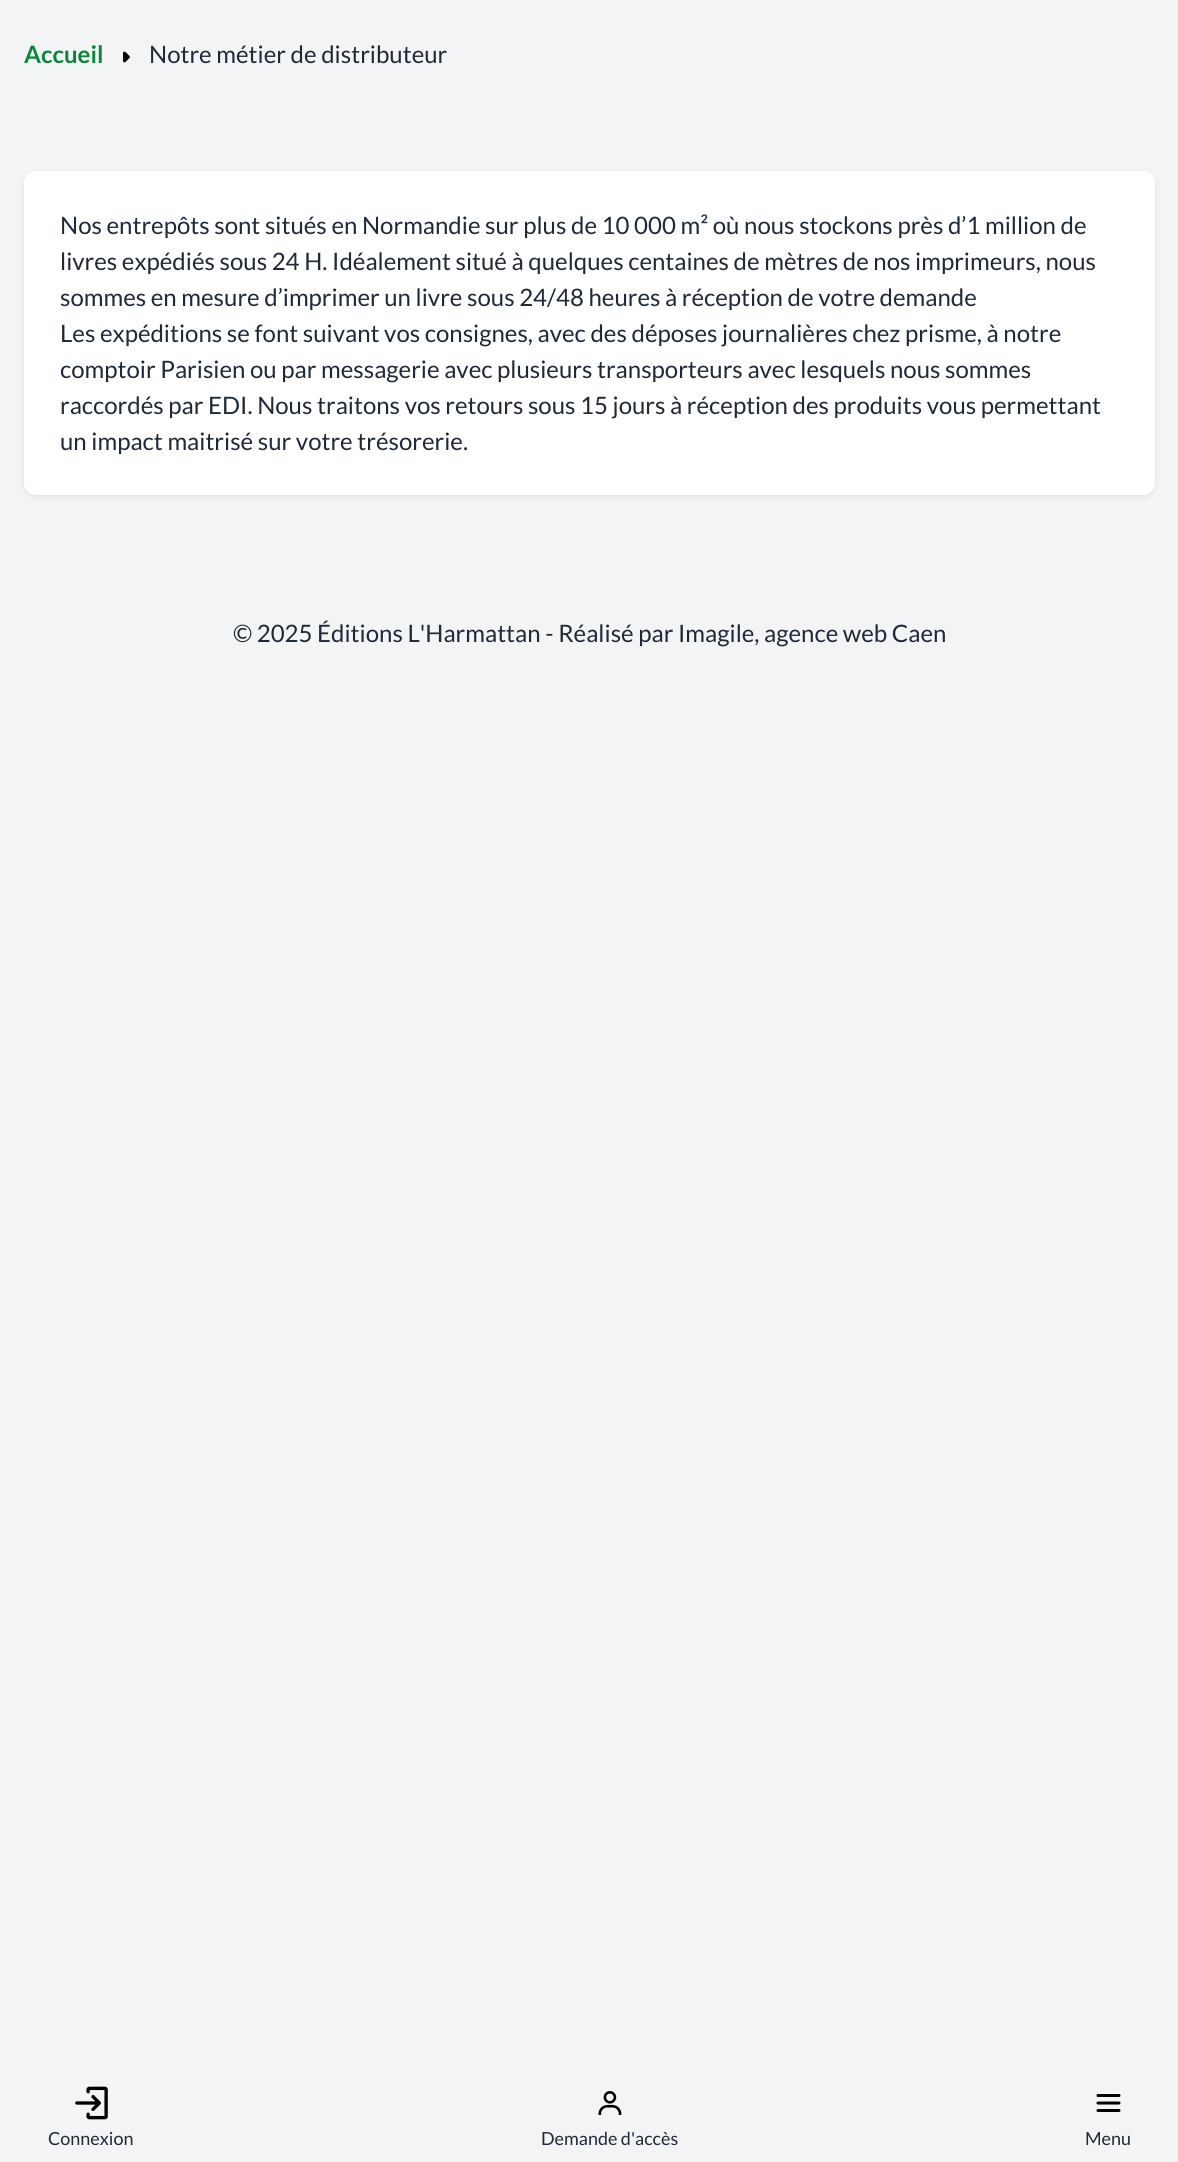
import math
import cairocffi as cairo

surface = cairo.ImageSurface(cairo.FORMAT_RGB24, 1178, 2162)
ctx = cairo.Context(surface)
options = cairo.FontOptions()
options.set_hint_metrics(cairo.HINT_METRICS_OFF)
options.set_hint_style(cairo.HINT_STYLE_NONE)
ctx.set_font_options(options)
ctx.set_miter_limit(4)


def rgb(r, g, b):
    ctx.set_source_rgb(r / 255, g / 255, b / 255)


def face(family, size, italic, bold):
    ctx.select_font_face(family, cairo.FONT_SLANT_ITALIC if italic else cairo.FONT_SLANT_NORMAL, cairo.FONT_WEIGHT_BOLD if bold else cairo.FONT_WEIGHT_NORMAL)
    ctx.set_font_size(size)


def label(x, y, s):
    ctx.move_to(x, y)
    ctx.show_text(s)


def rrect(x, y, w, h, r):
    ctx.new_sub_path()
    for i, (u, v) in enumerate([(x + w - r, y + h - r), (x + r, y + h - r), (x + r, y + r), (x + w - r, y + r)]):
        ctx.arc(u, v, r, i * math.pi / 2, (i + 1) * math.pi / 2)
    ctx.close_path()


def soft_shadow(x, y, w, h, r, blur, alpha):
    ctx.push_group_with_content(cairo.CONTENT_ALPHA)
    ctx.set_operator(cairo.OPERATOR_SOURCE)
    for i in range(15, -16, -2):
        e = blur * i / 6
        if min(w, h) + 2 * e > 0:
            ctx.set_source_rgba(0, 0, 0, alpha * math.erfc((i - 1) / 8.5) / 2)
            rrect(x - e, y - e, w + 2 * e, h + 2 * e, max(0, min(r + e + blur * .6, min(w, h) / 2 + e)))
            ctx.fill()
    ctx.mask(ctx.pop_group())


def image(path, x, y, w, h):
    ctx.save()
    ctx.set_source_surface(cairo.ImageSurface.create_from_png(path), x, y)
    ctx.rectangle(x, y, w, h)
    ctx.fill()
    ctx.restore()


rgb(243, 244, 246)
ctx.paint()
face('Lato', 24, 0, 1)
rgb(11, 135, 60)
label(24, 63, 'Accueil')
image('image0.png', 123, 51, 7, 12)
face('Lato', 24, 0, 0)
rgb(31, 41, 55)
label(149, 63, 'Notre métier de distributeur')
rgb(0, 0, 0)
soft_shadow(24, 173, 1131, 324, 12, 3, 0.08)
rgb(255, 255, 255)
rrect(24, 171, 1131, 324, 12)
ctx.fill()
rgb(31, 41, 55)
label(60, 234, 'Nos entrepôts sont situés en Normandie sur plus de 10 000 m² où nous stockons près d’1 million de')
label(60, 270, 'livres expédiés sous 24 H. Idéalement situé à quelques centaines de mètres de nos imprimeurs, nous')
label(60, 306, 'sommes en mesure d’imprimer un livre sous 24/48 heures à réception de votre demande')
label(60, 342, 'Les expéditions se font suivant vos consignes, avec des déposes journalières chez prisme, à notre')
label(60, 378, 'comptoir Parisien ou par messagerie avec plusieurs transporteurs avec lesquels nous sommes')
label(60, 414, 'raccordés par EDI. Nous traitons vos retours sous 15 jours à réception des produits vous permettant')
label(60, 450, 'un impact maitrisé sur votre trésorerie.')
label(233, 642, '© 2025 Éditions L\'Harmattan - Réalisé par Imagile, agence web Caen')
image('image1.png', 75, 2086, 33, 34)
face('Lato', 18, 0, 0)
label(48, 2145, 'Connexion')
image('image2.png', 598, 2091, 24, 24)
label(541, 2145, 'Demande d\'accès')
image('image3.png', 1096, 2094, 25, 18)
label(1085, 2145, 'Menu')
surface.write_to_png('render.png')
